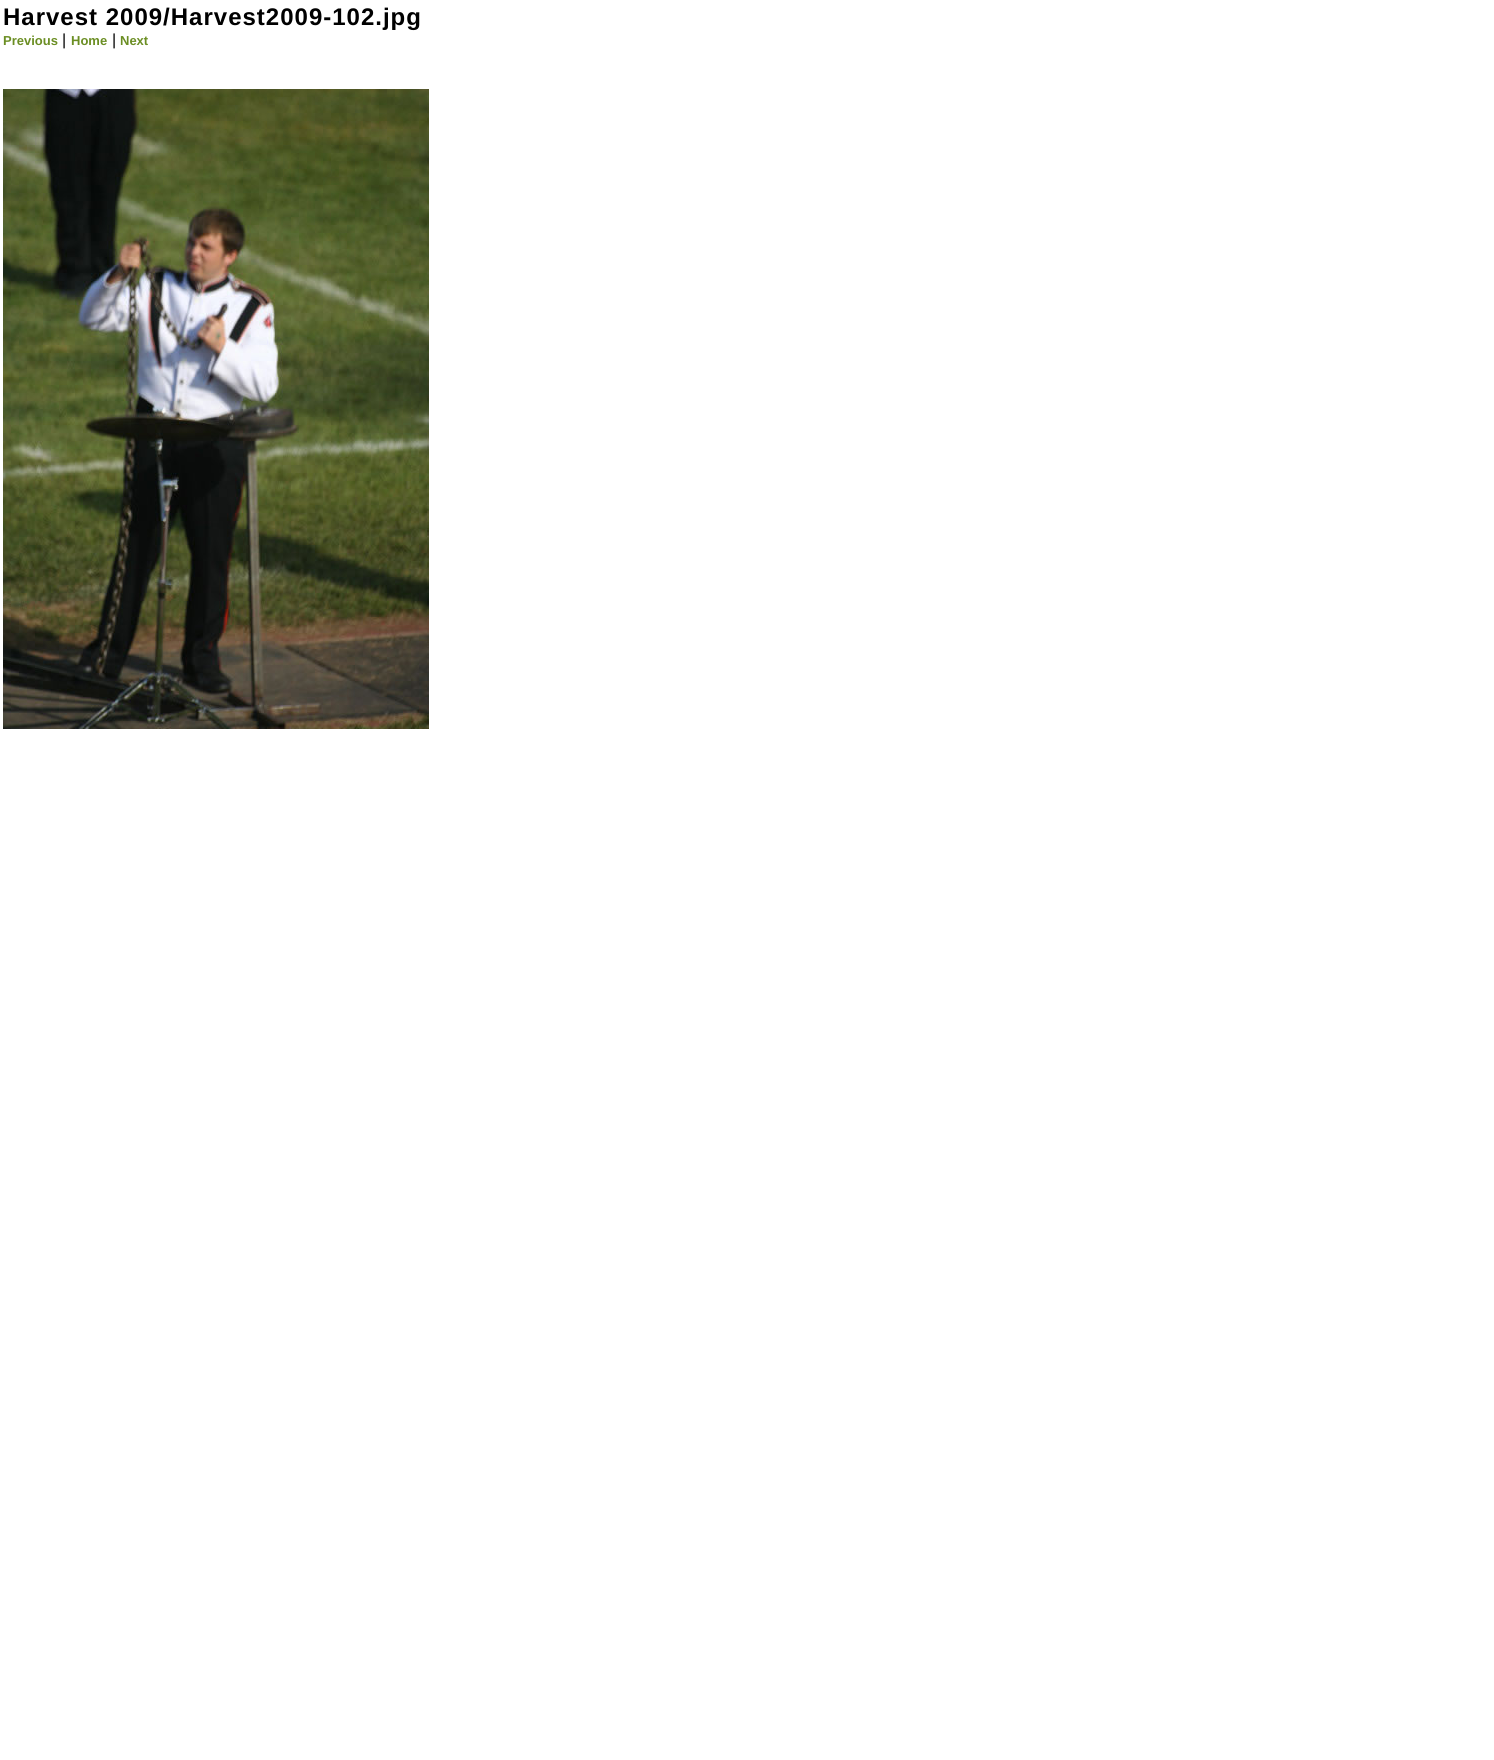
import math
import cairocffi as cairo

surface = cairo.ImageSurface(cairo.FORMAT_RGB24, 1494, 1760)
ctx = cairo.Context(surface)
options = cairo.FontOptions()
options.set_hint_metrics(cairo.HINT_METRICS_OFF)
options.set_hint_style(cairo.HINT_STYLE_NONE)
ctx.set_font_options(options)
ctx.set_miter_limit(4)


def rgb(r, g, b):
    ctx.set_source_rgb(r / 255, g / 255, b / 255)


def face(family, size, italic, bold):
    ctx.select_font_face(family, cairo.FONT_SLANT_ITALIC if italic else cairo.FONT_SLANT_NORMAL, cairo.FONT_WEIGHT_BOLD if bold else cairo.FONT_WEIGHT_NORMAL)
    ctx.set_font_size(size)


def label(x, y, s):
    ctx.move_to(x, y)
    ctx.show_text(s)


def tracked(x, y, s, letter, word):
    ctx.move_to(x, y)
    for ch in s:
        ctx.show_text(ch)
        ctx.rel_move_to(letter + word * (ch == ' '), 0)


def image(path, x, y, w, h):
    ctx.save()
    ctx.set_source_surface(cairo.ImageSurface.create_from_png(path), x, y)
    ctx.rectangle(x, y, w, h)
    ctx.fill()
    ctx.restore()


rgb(255, 255, 255)
ctx.paint()
face('Liberation Sans', 24, 0, 1)
rgb(0, 0, 0)
tracked(3, 25, 'Harvest 2009/Harvest2009-102.jpg', 1, 0)
face('Liberation Sans', 13, 0, 1)
rgb(107, 142, 35)
label(3, 45, 'Previous')
face('Liberation Sans', 16, 0, 0)
rgb(0, 0, 0)
label(62, 45, '|')
face('Liberation Sans', 13, 0, 1)
rgb(107, 142, 35)
label(71, 45, 'Home')
face('Liberation Sans', 16, 0, 0)
rgb(0, 0, 0)
label(112, 45, '|')
face('Liberation Sans', 13, 0, 1)
rgb(107, 142, 35)
label(120, 45, 'Next')
image('image0.png', 3, 89, 426, 640)
surface.write_to_png('render.png')
